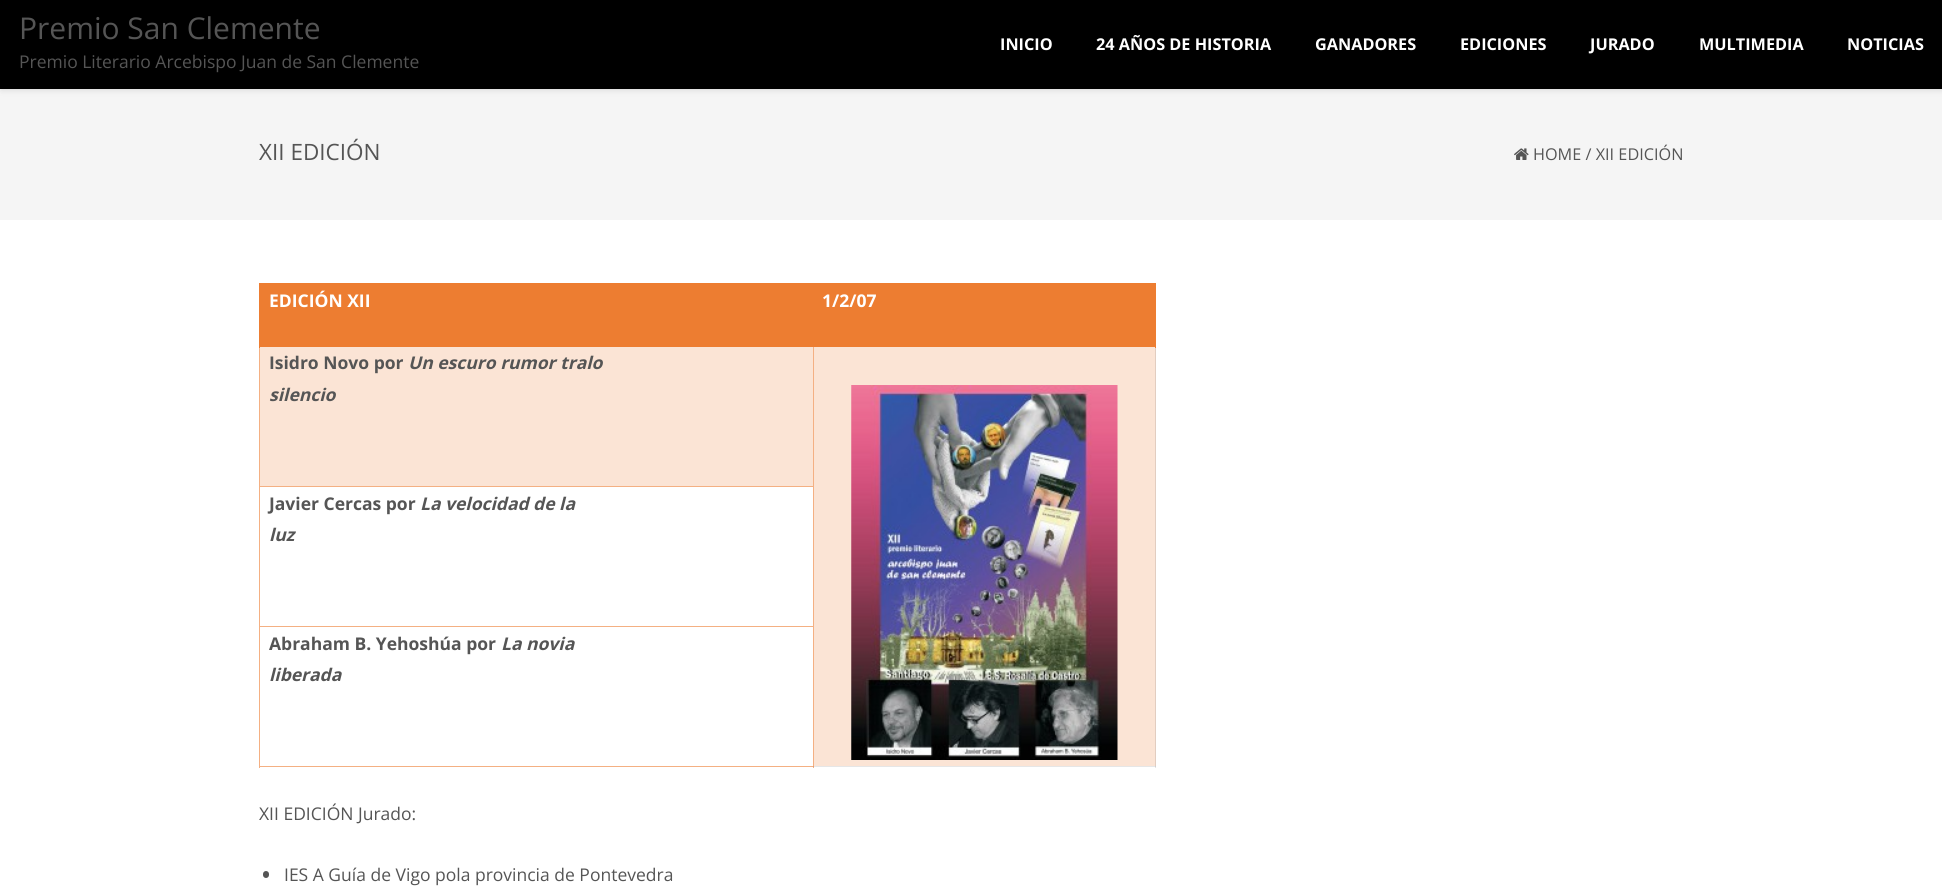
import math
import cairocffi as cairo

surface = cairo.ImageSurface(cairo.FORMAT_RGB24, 1942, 887)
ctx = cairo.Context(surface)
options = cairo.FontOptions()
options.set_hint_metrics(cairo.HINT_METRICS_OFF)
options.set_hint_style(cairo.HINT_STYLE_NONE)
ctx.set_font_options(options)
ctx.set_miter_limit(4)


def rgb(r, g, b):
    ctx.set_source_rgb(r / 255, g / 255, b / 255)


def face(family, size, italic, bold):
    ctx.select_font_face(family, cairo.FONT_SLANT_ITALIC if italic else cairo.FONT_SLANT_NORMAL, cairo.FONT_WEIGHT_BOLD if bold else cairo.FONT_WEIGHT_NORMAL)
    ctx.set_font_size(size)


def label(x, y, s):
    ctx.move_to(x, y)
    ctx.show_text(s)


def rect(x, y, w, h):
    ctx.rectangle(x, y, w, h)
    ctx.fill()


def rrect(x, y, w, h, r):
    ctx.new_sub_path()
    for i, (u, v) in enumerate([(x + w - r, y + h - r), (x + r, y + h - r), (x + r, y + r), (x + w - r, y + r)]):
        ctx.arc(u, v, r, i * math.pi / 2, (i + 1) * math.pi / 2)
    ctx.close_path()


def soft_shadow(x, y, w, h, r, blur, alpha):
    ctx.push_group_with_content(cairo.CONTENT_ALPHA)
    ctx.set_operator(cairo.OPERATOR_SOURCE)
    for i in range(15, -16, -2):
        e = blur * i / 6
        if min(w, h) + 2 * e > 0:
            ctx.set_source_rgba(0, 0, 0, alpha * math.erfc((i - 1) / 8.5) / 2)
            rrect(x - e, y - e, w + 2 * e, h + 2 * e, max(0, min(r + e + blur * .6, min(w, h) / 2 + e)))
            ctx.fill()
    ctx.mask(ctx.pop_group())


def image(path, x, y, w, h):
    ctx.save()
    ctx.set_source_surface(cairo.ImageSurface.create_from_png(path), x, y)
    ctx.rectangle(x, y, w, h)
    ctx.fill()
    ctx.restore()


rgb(255, 255, 255)
ctx.paint()
rgb(230, 230, 230)
rect(813, 766, 343, 1)
rect(1155, 767, 1, 1)
rgb(207, 207, 207)
rect(1155, 766, 1, 1)
rgb(245, 245, 245)
rect(0, 89, 1942, 131)
rgb(100, 100, 100)
soft_shadow(1, 1, 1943, 89, 0, 3, 0.2)
rgb(0, 0, 0)
rect(0, 0, 1942, 89)
face('Open Sans', 30, 0, 0)
rgb(85, 85, 85)
label(19, 39, 'Premio San Clemente')
face('Open Sans', 17.5, 0, 0)
label(19, 68, 'Premio Literario Arcebispo Juan de San Clemente')
face('Open Sans', 16.25, 0, 1)
rgb(255, 255, 255)
label(1000, 50, 'INICIO')
label(1096, 50, '24 AÑOS DE HISTORIA')
label(1315, 50, 'GANADORES')
label(1460, 50, 'EDICIONES')
label(1590, 50, 'JURADO')
label(1699, 50, 'MULTIMEDIA')
label(1847, 50, 'NOTICIAS')
face('Open Sans', 22.5, 0, 0)
rgb(85, 85, 85)
label(259, 160, 'XII EDICIÓN')
image('image0.png', 1514, 148, 15, 12)
face('Open Sans', 16.25, 0, 0)
label(1533, 160, 'HOME / XII EDICIÓN')
rgb(237, 125, 49)
rect(259, 283, 897, 1)
rgb(226, 205, 192)
rect(1155, 346, 1, 420)
rgb(237, 125, 49)
rect(1155, 283, 1, 65)
rgb(244, 176, 131)
rect(813, 346, 1, 422)
rect(259, 766, 555, 1)
rect(259, 626, 1, 142)
rect(259, 626, 555, 1)
rect(259, 486, 1, 142)
rect(259, 486, 555, 1)
rect(259, 346, 1, 142)
rgb(237, 125, 49)
rect(259, 346, 897, 1)
rect(260, 284, 895, 62)
rect(259, 283, 1, 65)
face('Open Sans', 17.5, 0, 1)
rgb(255, 255, 255)
label(269, 307, 'EDICIÓN XII')
label(822, 307, '1/2/07')
rgb(251, 228, 213)
rect(260, 347, 553, 139)
rgb(85, 85, 85)
label(269, 369, 'Isidro Novo por')
face('Open Sans', 17.5, 1, 1)
label(408, 369, 'Un escuro rumor tralo')
label(269, 401, 'silencio')
rgb(251, 228, 213)
rect(814, 347, 341, 419)
image('image1.png', 851, 385, 267, 375)
face('Open Sans', 17.5, 0, 1)
rgb(85, 85, 85)
label(269, 510, 'Javier Cercas por')
face('Open Sans', 17.5, 1, 1)
label(420, 510, 'La velocidad de la')
label(269, 541, 'luz')
rgb(220, 158, 118)
rect(813, 766, 1, 1)
face('Open Sans', 17.5, 0, 1)
rgb(85, 85, 85)
label(269, 650, 'Abraham B. Yehoshúa por')
face('Open Sans', 17.5, 1, 1)
label(501, 650, 'La novia')
label(269, 681, 'liberada')
face('Open Sans', 17.5, 0, 0)
label(259, 820, 'XII EDICIÓN Jurado:')
rrect(263, 871, 6, 7, 3)
ctx.fill()
label(284, 881, 'IES A Guía de Vigo pola provincia de Pontevedra')
surface.write_to_png('render.png')
